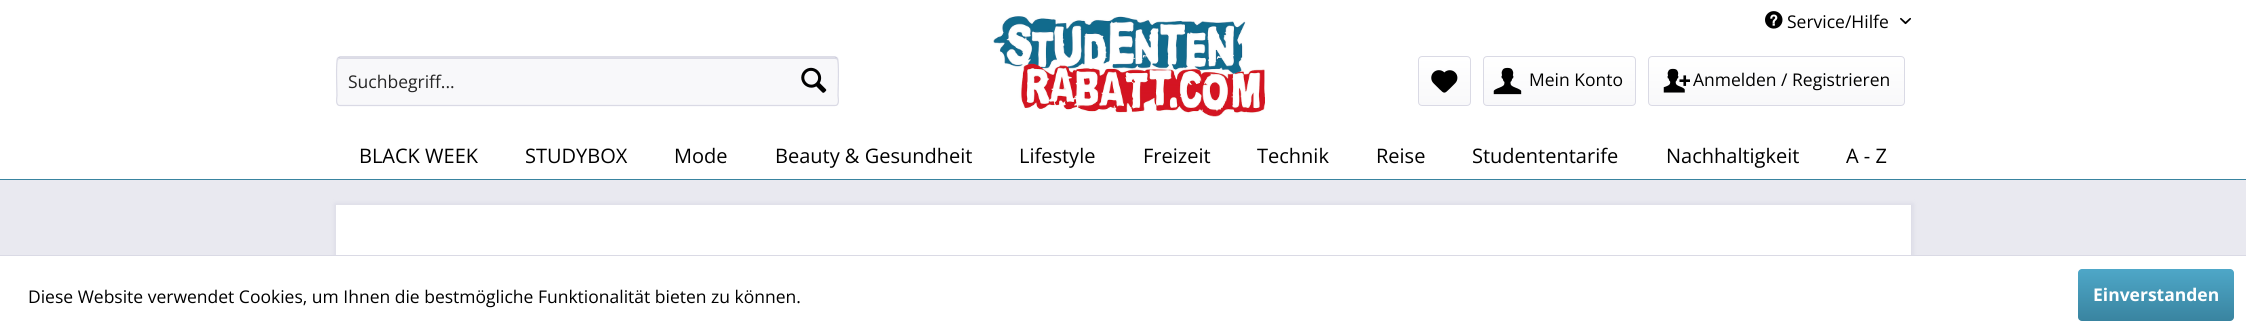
import math
import cairocffi as cairo

surface = cairo.ImageSurface(cairo.FORMAT_RGB24, 2246, 334)
ctx = cairo.Context(surface)
options = cairo.FontOptions()
options.set_hint_metrics(cairo.HINT_METRICS_OFF)
options.set_hint_style(cairo.HINT_STYLE_NONE)
ctx.set_font_options(options)
ctx.set_miter_limit(4)


def rgb(r, g, b):
    ctx.set_source_rgb(r / 255, g / 255, b / 255)


def face(family, size, italic, bold):
    ctx.select_font_face(family, cairo.FONT_SLANT_ITALIC if italic else cairo.FONT_SLANT_NORMAL, cairo.FONT_WEIGHT_BOLD if bold else cairo.FONT_WEIGHT_NORMAL)
    ctx.set_font_size(size)


def label(x, y, s):
    ctx.move_to(x, y)
    ctx.show_text(s)


def rect(x, y, w, h):
    ctx.rectangle(x, y, w, h)
    ctx.fill()


def rrect(x, y, w, h, r):
    ctx.new_sub_path()
    for i, (u, v) in enumerate([(x + w - r, y + h - r), (x + r, y + h - r), (x + r, y + r), (x + w - r, y + r)]):
        ctx.arc(u, v, r, i * math.pi / 2, (i + 1) * math.pi / 2)
    ctx.close_path()


def soft_shadow(x, y, w, h, r, blur, alpha):
    ctx.push_group_with_content(cairo.CONTENT_ALPHA)
    ctx.set_operator(cairo.OPERATOR_SOURCE)
    for i in range(15, -16, -2):
        e = blur * i / 6
        if min(w, h) + 2 * e > 0:
            ctx.set_source_rgba(0, 0, 0, alpha * math.erfc((i - 1) / 8.5) / 2)
            rrect(x - e, y - e, w + 2 * e, h + 2 * e, max(0, min(r + e + blur * .6, min(w, h) / 2 + e)))
            ctx.fill()
    ctx.mask(ctx.pop_group())


def image(path, x, y, w, h):
    ctx.save()
    ctx.set_source_surface(cairo.ImageSurface.create_from_png(path), x, y)
    ctx.rectangle(x, y, w, h)
    ctx.fill()
    ctx.restore()


rgb(233, 233, 240)
ctx.paint()
rgb(255, 255, 255)
rect(0, 0, 2246, 179)
image('image0.png', 1765, 11, 18, 18)
face('Open Sans', 17.5, 0, 0)
rgb(0, 0, 0)
label(1787, 28, 'Service/Hilfe')
image('image1.png', 1900, 17, 11, 8)
rgb(248, 248, 250)
rrect(336, 56, 503, 50, 4)
ctx.fill()
rgb(218, 218, 229)
ctx.new_path()
ctx.move_to(340, 59)
ctx.line_to(835, 59)
ctx.curve_to(836, 59, 838, 60, 838, 61)
ctx.curve_to(838, 59, 837, 58, 836, 58)
ctx.line_to(340, 58)
ctx.curve_to(339, 58, 338, 59, 338, 61)
ctx.curve_to(338, 60, 339, 59, 340, 59)
ctx.close_path()
ctx.fill()
ctx.new_path()
ctx.move_to(338, 58)
ctx.line_to(340, 57)
ctx.line_to(835, 57)
ctx.line_to(837, 58)
rgb(203, 203, 219)
ctx.set_line_width(1.2)
ctx.stroke()
ctx.new_path()
ctx.move_to(837, 58)
ctx.curve_to(839.5, 60, 838, 90.5, 838, 95.5)
ctx.curve_to(838, 97.5, 840, 105.5, 835, 105.5)
ctx.line_to(340, 105.5)
ctx.curve_to(335, 105.5, 337, 97.5, 337, 95.5)
ctx.curve_to(337, 90.5, 335.5, 60, 338, 58)
rgb(218, 218, 229)
ctx.stroke()
rgb(38, 38, 38)
label(348, 88, 'Suchbegriff...')
image('image2.png', 801, 67, 26, 26)
image('image3.png', 993, 16, 272, 101)
gradient = cairo.LinearGradient(1444, 58, 1444, 105)
gradient.add_color_stop_rgba(0, 1, 1, 1, 1)
gradient.add_color_stop_rgba(1, 0.973, 0.973, 0.98, 1)
ctx.set_source(gradient)
rrect(1419, 58, 51, 47, 2.5)
ctx.fill()
rrect(1418.5, 56.5, 52, 49, 3.5)
rgb(218, 218, 229)
ctx.set_line_width(1)
ctx.stroke()
image('image4.png', 1431, 70, 27, 23)
gradient = cairo.LinearGradient(1559, 57, 1559, 105)
gradient.add_color_stop_rgba(0, 1, 1, 1, 1)
gradient.add_color_stop_rgba(1, 0.973, 0.973, 0.98, 1)
ctx.set_source(gradient)
rrect(1484, 58, 151, 47, 2.5)
ctx.fill()
rrect(1483.5, 56.5, 152, 49, 3.5)
rgb(218, 218, 229)
ctx.stroke()
image('image5.png', 1493, 67, 29, 28)
rgb(0, 0, 0)
label(1529, 86, 'Mein Konto')
gradient = cairo.LinearGradient(1776, 57, 1776, 105)
gradient.add_color_stop_rgba(0, 1, 1, 1, 1)
gradient.add_color_stop_rgba(1, 0.973, 0.973, 0.98, 1)
ctx.set_source(gradient)
rrect(1649, 58, 255, 47, 2.5)
ctx.fill()
rrect(1648.5, 56.5, 256, 49, 3.5)
rgb(218, 218, 229)
ctx.stroke()
image('image6.png', 1663, 68, 27, 25)
rgb(0, 0, 0)
label(1693, 86, 'Anmelden / Registrieren')
rgb(57, 132, 160)
rect(0, 179, 2246, 1)
face('Open Sans', 20, 0, 0)
rgb(0, 0, 0)
label(359, 163, 'BLACK WEEK')
label(525, 163, 'STUDYBOX')
label(674, 163, 'Mode')
label(775, 163, 'Beauty & Gesundheit')
label(1019, 163, 'Lifestyle')
label(1143, 163, 'Freizeit')
label(1257, 163, 'Technik')
label(1376, 163, 'Reise')
label(1472, 163, 'Studententarife')
label(1666, 163, 'Nachhaltigkeit')
label(1846, 163, 'A - Z')
rgb(218, 218, 229)
soft_shadow(335, 204, 1578, 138, 0, 2.5, 1)
rgb(255, 255, 255)
rect(336, 205, 1575, 50)
rect(0, 256, 2246, 78)
rgb(218, 218, 229)
rect(0, 255, 2246, 1)
face('Open Sans', 17.5, 0, 0)
rgb(0, 0, 0)
label(28, 303, 'Diese Website verwendet Cookies, um Ihnen die bestmögliche Funktionalität bieten zu können.')
gradient = cairo.LinearGradient(2156, 269, 2156, 321)
gradient.add_color_stop_rgba(0, 0.306, 0.655, 0.784, 1)
gradient.add_color_stop_rgba(1, 0.224, 0.518, 0.627, 1)
ctx.set_source(gradient)
rrect(2078, 269, 156, 52, 4)
ctx.fill()
face('Open Sans', 17.5, 0, 1)
rgb(255, 255, 255)
label(2093, 301, 'Einverstanden')
surface.write_to_png('render.png')
